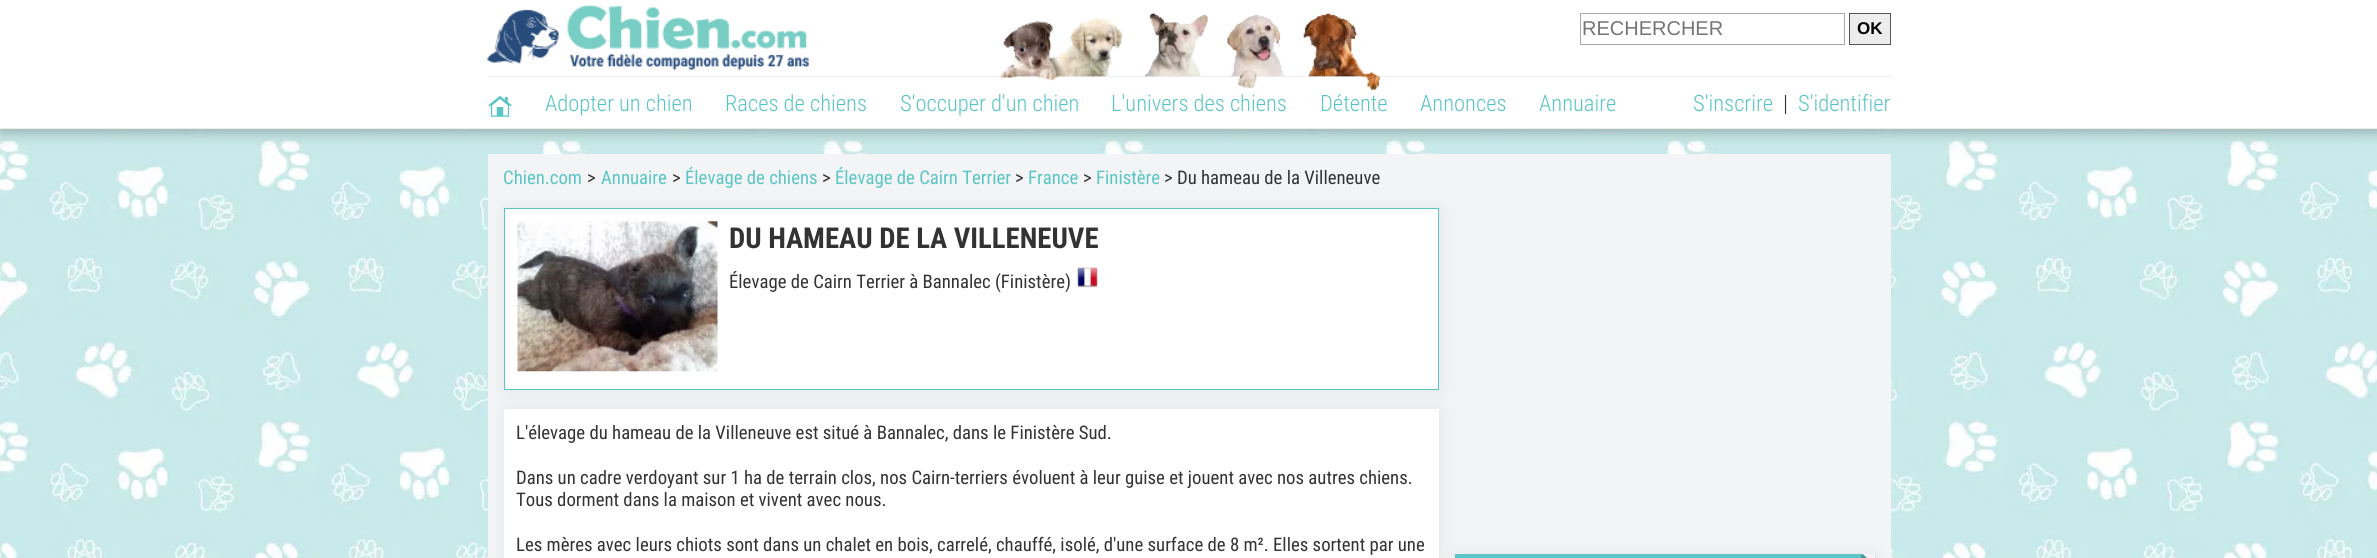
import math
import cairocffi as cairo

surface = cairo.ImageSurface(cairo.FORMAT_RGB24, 2377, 558)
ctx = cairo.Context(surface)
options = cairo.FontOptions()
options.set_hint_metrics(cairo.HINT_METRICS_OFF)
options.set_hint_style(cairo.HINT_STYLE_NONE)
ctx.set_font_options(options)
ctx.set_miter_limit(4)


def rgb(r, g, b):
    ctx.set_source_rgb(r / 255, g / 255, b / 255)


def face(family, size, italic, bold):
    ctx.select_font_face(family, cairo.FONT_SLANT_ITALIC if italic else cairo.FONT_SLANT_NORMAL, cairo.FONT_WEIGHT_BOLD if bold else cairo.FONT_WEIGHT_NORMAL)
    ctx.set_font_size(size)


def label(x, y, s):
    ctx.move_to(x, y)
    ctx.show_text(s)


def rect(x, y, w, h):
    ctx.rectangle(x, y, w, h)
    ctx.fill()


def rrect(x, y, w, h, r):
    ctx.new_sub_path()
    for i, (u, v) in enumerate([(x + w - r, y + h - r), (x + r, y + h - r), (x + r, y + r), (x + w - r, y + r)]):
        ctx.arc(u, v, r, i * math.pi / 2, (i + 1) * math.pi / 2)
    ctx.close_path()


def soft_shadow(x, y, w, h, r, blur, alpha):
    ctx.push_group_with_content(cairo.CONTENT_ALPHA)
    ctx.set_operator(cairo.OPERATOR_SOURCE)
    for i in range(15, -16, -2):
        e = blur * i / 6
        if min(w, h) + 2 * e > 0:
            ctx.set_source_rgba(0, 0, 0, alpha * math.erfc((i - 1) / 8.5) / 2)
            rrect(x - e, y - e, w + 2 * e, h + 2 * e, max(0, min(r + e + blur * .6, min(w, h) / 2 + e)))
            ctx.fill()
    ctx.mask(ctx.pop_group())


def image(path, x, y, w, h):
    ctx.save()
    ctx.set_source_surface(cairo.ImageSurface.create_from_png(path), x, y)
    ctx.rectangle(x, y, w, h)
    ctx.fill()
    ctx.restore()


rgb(255, 255, 255)
ctx.paint()
image('image0.png', 0, 129, 2377, 429)
rgb(72, 72, 72)
soft_shadow(1, 1, 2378, 129, 0, 8, 0.5)
rgb(255, 255, 255)
rect(0, 0, 2377, 128)
rgb(236, 237, 237)
rect(0, 128, 2377, 1)
image('image1.png', 487, 5, 322, 65)
rect(488, 76, 1403, 1)
image('image2.png', 1000, 13, 380, 77)
ctx.rectangle(1580.5, 13.5, 264, 31)
rgb(169, 169, 169)
ctx.set_line_width(1)
ctx.stroke()
face('Liberation Sans', 20, 0, 0)
rgb(117, 117, 117)
label(1582, 35, 'RECHERCHER')
rgb(237, 237, 237)
ctx.rectangle(1849.5, 13.5, 41, 31)
ctx.fill_preserve()
rgb(88, 84, 82)
ctx.stroke()
face('Liberation Sans', 17, 0, 1)
rgb(0, 0, 0)
label(1857, 34, 'OK')
image('image3.png', 488, 95, 25, 22)
face('Roboto Light', 22.5, 0, 0)
rgb(91, 197, 197)
label(545, 111, 'Adopter un chien')
label(725, 111, 'Races de chiens')
label(900, 111, 'S\'occuper d\'un chien')
label(1111, 111, 'L\'univers des chiens')
label(1320, 111, 'Détente')
label(1420, 111, 'Annonces')
label(1539, 111, 'Annuaire')
label(1693, 111, 'S\'inscrire')
rgb(51, 51, 51)
label(1783, 111, '|')
rgb(91, 197, 197)
label(1798, 111, 'S\'identifier')
rgb(243, 244, 245)
rect(488, 154, 1403, 404)
rgb(72, 72, 72)
soft_shadow(505, 209, 935, 182, 0, 8, 0.1)
face('Roboto Condensed', 18.75, 0, 0)
rgb(91, 197, 197)
label(503, 184, 'Chien.com')
rgb(51, 51, 51)
label(587, 184, '>')
rgb(91, 197, 197)
label(601, 184, 'Annuaire')
rgb(51, 51, 51)
label(672, 184, '>')
rgb(91, 197, 197)
label(685, 184, 'Élevage de chiens')
rgb(51, 51, 51)
label(822, 184, '>')
rgb(91, 197, 197)
label(835, 184, 'Élevage de Cairn Terrier')
rgb(51, 51, 51)
label(1015, 184, '>')
rgb(91, 197, 197)
label(1028, 184, 'France')
rgb(51, 51, 51)
label(1083, 184, '>')
rgb(91, 197, 197)
label(1096, 184, 'Finistère')
rgb(51, 51, 51)
label(1164, 184, '> Du hameau de la Villeneuve')
rgb(255, 255, 255)
ctx.rectangle(504.5, 208.5, 934, 181)
ctx.fill_preserve()
rgb(91, 197, 197)
ctx.stroke()
image('image4.png', 517, 221, 201, 151)
face('Roboto', 28.75, 0, 1)
rgb(51, 51, 51)
label(729, 248, 'DU HAMEAU DE LA VILLENEUVE')
face('Roboto Condensed', 18.75, 0, 0)
label(729, 288, 'Élevage de Cairn Terrier à Bannalec (Finistère)')
image('image5.png', 1077, 267, 21, 21)
rgb(72, 72, 72)
soft_shadow(505, 410, 935, 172, 0, 8, 0.1)
rgb(255, 255, 255)
rect(504, 409, 935, 149)
rgb(51, 51, 51)
label(516, 439, 'L\'élevage du hameau de la Villeneuve est situé à Bannalec, dans le Finistère Sud.')
label(516, 484, 'Dans un cadre verdoyant sur 1 ha de terrain clos, nos Cairn-terriers évoluent à leur guise et jouent avec nos autres chiens.')
label(516, 506, 'Tous dorment dans la maison et vivent avec nous.')
label(516, 551, 'Les mères avec leurs chiots sont dans un chalet en bois, carrelé, chauffé, isolé, d\'une surface de 8 m². Elles sortent par une')
rgb(72, 72, 72)
soft_shadow(1456, 555, 420, 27, 0, 8, 0.1)
rgb(91, 197, 197)
rect(1455, 554, 420, 4)
rgb(0, 0, 0)
soft_shadow(1861, 555, 13, 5, 0, 0.5, 0.2)
soft_shadow(1863, 555, 12, 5, 0, 0.5, 0.3)
rgb(243, 244, 245)
ctx.new_path()
ctx.move_to(1875, 554)
ctx.line_to(1875, 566)
ctx.line_to(1862.5, 554)
ctx.close_path()
ctx.fill()
rgb(73, 150, 150)
ctx.new_path()
ctx.move_to(1875, 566)
ctx.line_to(1862.5, 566)
ctx.line_to(1862.5, 554)
ctx.close_path()
ctx.fill()
surface.write_to_png('render.png')
